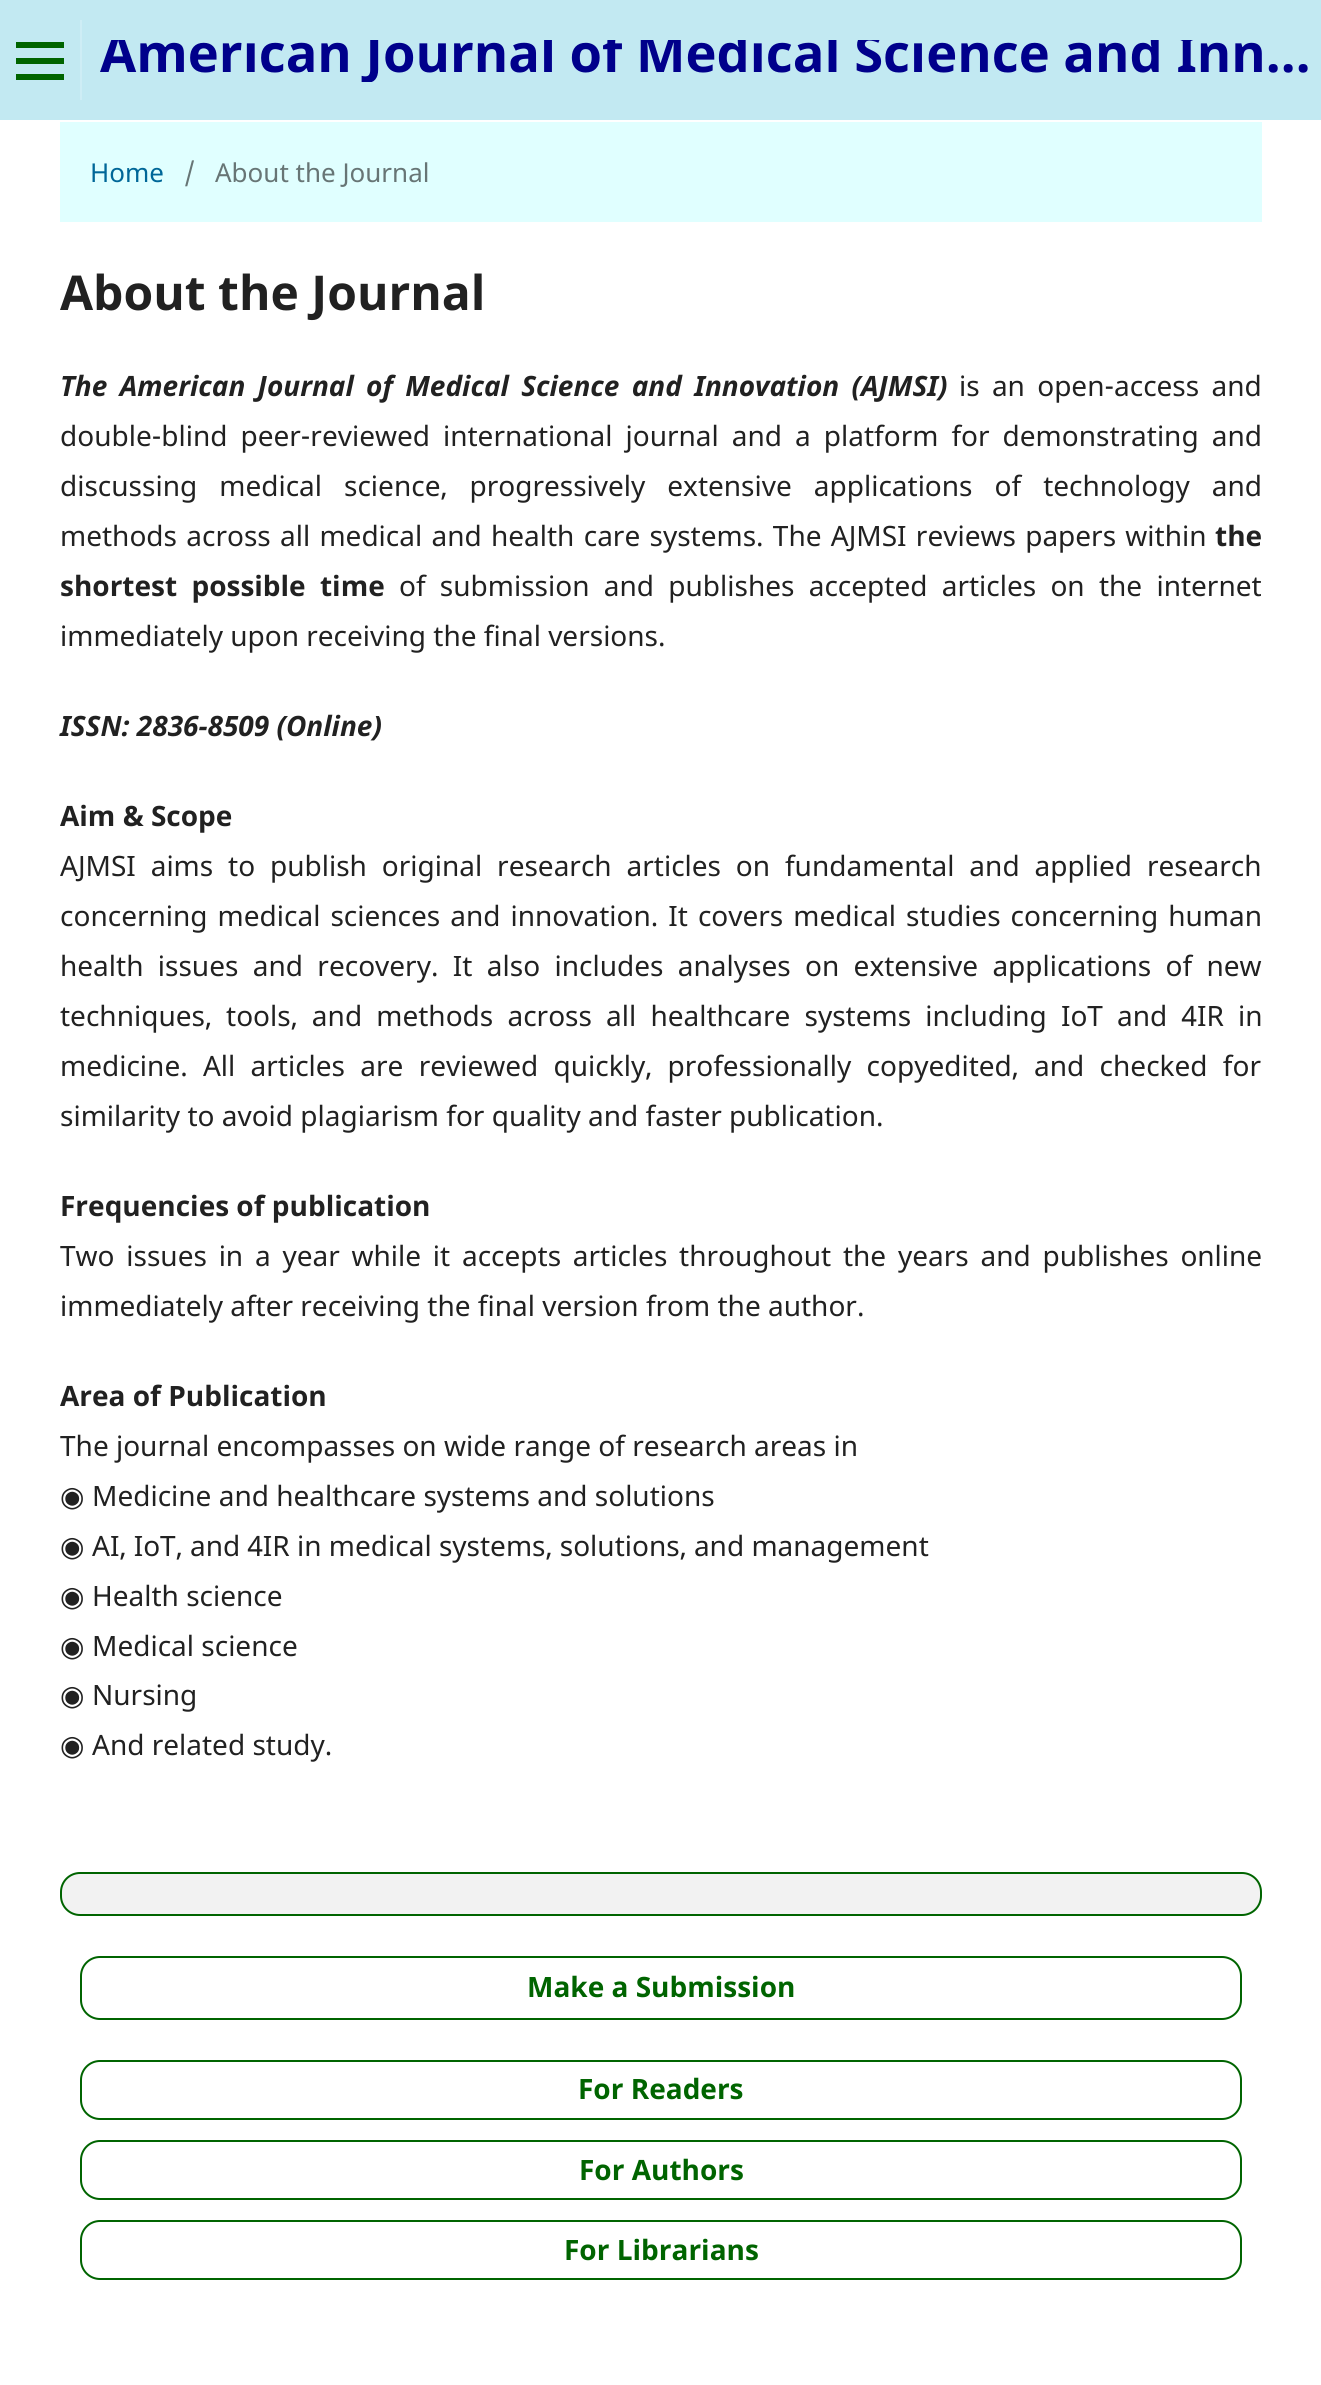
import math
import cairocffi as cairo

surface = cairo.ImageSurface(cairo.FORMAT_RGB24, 1321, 2385)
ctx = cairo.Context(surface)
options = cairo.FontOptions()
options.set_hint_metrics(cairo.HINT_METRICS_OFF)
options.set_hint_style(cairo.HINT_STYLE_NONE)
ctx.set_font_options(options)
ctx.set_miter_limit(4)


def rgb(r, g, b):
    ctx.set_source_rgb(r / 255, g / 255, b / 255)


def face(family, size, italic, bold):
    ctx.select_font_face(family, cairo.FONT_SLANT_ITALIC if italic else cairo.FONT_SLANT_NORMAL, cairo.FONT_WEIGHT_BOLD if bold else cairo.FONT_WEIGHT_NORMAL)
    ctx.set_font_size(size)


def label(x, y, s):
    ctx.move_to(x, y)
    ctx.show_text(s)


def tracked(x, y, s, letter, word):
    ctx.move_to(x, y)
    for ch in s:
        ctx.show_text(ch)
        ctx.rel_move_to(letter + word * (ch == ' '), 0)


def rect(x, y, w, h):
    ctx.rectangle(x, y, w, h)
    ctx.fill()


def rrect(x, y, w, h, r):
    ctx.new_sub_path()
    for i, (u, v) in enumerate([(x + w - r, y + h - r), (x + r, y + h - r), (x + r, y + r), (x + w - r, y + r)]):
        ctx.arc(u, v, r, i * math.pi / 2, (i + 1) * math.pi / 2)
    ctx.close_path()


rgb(255, 255, 255)
ctx.paint()
rgb(194, 233, 242)
rect(0, 0, 1321, 120)
rgb(206, 237, 245)
rect(80, 20, 2, 80)
rgb(0, 100, 0)
rect(16, 74, 48, 6)
rect(16, 42, 48, 6)
rect(16, 58, 48, 6)
ctx.save()
ctx.rectangle(80, 40, 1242, 42)
ctx.clip()
face('Noto Sans', 52.5, 0, 1)
rgb(0, 0, 139)
label(100, 72, 'American Journal of Medical Science and Inn…')
ctx.restore()
rgb(224, 255, 255)
rect(60, 122, 1202, 100)
face('Noto Sans', 26, 0, 0)
rgb(0, 103, 152)
label(90, 182, 'Home')
rgb(103, 117, 117)
label(184, 182, '/')
label(215, 182, 'About the Journal')
face('Noto Sans', 48, 0, 1)
rgb(33, 33, 33)
label(60, 310, 'About the Journal')
face('Noto Sans', 28, 1, 1)
tracked(60, 396, 'The American Journal of Medical Science and Innovation (AJMSI)', 0, 5)
face('Noto Sans', 28, 0, 0)
tracked(959, 396, 'is an open-access and', 0, 5)
tracked(60, 446, 'double-blind peer-reviewed international journal and a platform for demonstrating and', 0, 5.75)
tracked(60, 496, 'discussing medical science, progressively extensive applications of technology and', 0, 14.75)
tracked(60, 546, 'methods across all medical and health care systems. The AJMSI reviews papers within', 0, 2)
face('Noto Sans', 28, 0, 1)
label(1215, 546, 'the')
tracked(60, 596, 'shortest possible time', 0, 7)
face('Noto Sans', 28, 0, 0)
tracked(399, 596, 'of submission and publishes accepted articles on the internet', 0, 7)
label(60, 646, 'immediately upon receiving the final versions.')
face('Noto Sans', 28, 1, 1)
label(60, 736, 'ISSN: 2836-8509 (Online)')
face('Noto Sans', 28, 0, 1)
label(60, 826, 'Aim & Scope')
face('Noto Sans', 28, 0, 0)
tracked(60, 876, 'AJMSI aims to publish original research articles on fundamental and applied research', 0, 7.6)
tracked(60, 926, 'concerning medical sciences and innovation. It covers medical studies concerning human', 0, 2.75)
tracked(60, 976, 'health issues and recovery. It also includes analyses on extensive applications of new', 0, 7.1)
tracked(60, 1026, 'techniques, tools, and methods across all healthcare systems including IoT and 4IR in', 0, 6.9)
tracked(60, 1076, 'medicine. All articles are reviewed quickly, professionally copyedited, and checked for', 0, 8)
label(60, 1126, 'similarity to avoid plagiarism for quality and faster publication.')
face('Noto Sans', 28, 0, 1)
label(60, 1216, 'Frequencies of publication')
face('Noto Sans', 28, 0, 0)
tracked(60, 1266, 'Two issues in a year while it accepts articles throughout the years and publishes online', 0, 4.5)
label(60, 1316, 'immediately after receiving the final version from the author.')
face('Noto Sans', 28, 0, 1)
label(60, 1406, 'Area of Publication')
face('Noto Sans', 28, 0, 0)
label(60, 1456, 'The journal encompasses on wide range of research areas in')
face('DejaVu Sans', 28, 0, 0)
label(60, 1506, '◉')
face('Noto Sans', 28, 0, 0)
label(92, 1506, 'Medicine and healthcare systems and solutions')
face('DejaVu Sans', 28, 0, 0)
label(60, 1556, '◉')
face('Noto Sans', 28, 0, 0)
label(92, 1556, 'AI, IoT, and 4IR in medical systems, solutions, and management')
face('DejaVu Sans', 28, 0, 0)
label(60, 1606, '◉')
face('Noto Sans', 28, 0, 0)
label(92, 1606, 'Health science')
face('DejaVu Sans', 28, 0, 0)
label(60, 1656, '◉')
face('Noto Sans', 28, 0, 0)
label(92, 1656, 'Medical science')
face('DejaVu Sans', 28, 0, 0)
label(60, 1705, '◉')
face('Noto Sans', 28, 0, 0)
label(92, 1705, 'Nursing')
face('DejaVu Sans', 28, 0, 0)
label(60, 1755, '◉')
face('Noto Sans', 28, 0, 0)
label(92, 1755, 'And related study.')
rgb(242, 242, 242)
rrect(61, 1873, 1200, 42, 19)
ctx.fill_preserve()
rgb(0, 100, 0)
ctx.stroke()
rrect(81, 1957, 1160, 62, 19)
ctx.stroke()
face('Noto Sans', 28, 0, 1)
label(527, 1997, 'Make a Submission')
rrect(81, 2061, 1160, 58, 19)
ctx.stroke()
label(578, 2099, 'For Readers')
rrect(81, 2141, 1160, 58, 19)
ctx.stroke()
label(579, 2180, 'For Authors')
rrect(81, 2221, 1160, 58, 19)
ctx.stroke()
label(564, 2260, 'For Librarians')
surface.write_to_png('render.png')
